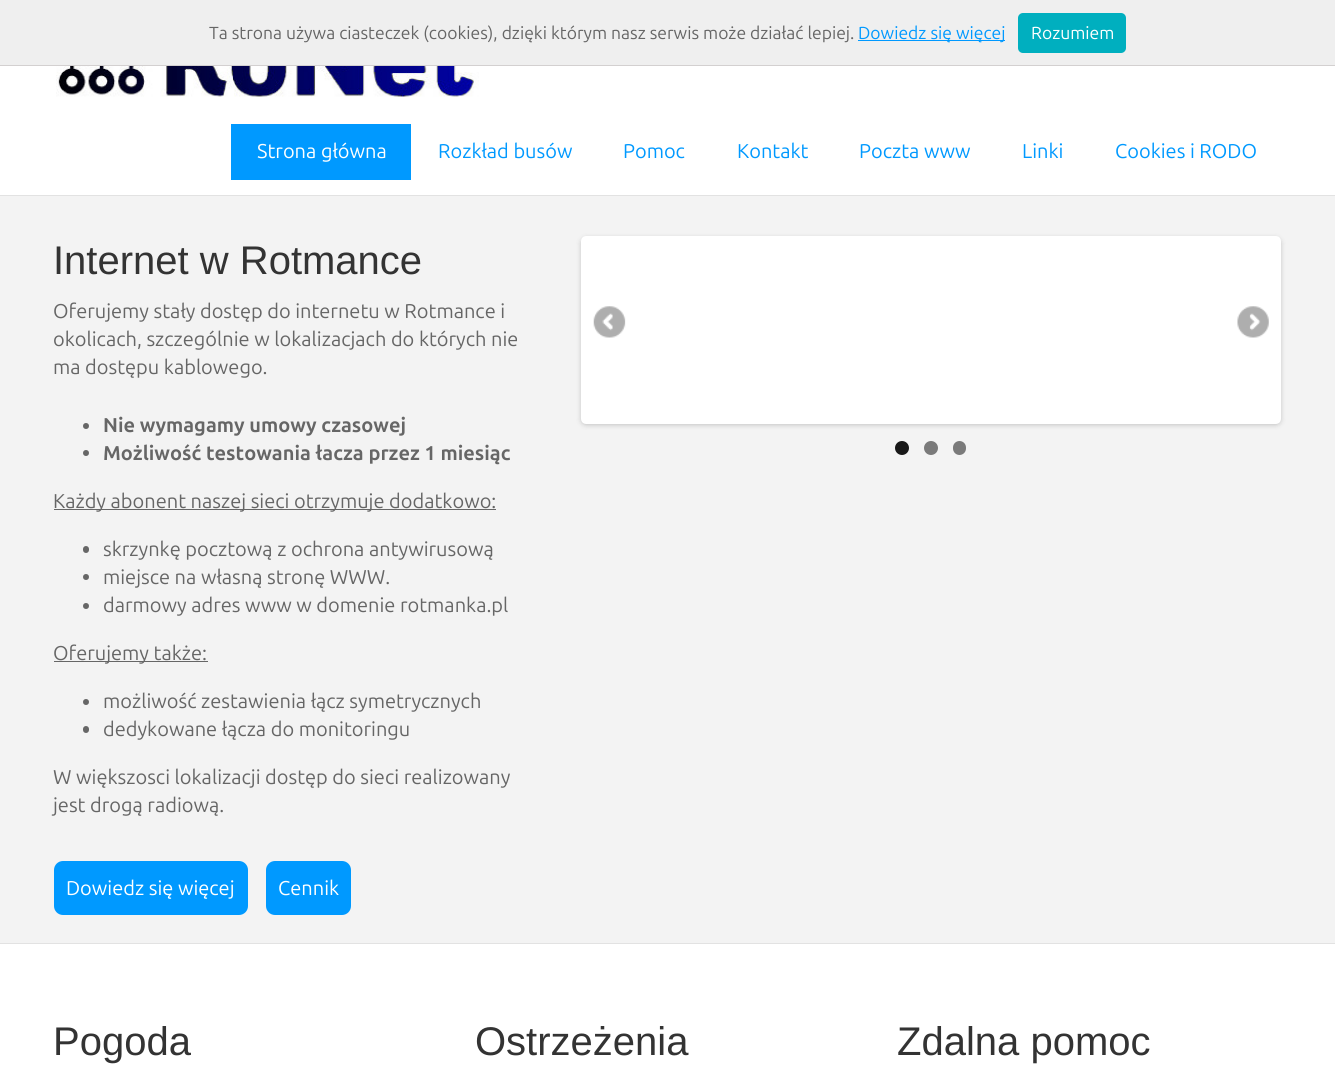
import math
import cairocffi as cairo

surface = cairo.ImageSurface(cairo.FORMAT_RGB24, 1335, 1072)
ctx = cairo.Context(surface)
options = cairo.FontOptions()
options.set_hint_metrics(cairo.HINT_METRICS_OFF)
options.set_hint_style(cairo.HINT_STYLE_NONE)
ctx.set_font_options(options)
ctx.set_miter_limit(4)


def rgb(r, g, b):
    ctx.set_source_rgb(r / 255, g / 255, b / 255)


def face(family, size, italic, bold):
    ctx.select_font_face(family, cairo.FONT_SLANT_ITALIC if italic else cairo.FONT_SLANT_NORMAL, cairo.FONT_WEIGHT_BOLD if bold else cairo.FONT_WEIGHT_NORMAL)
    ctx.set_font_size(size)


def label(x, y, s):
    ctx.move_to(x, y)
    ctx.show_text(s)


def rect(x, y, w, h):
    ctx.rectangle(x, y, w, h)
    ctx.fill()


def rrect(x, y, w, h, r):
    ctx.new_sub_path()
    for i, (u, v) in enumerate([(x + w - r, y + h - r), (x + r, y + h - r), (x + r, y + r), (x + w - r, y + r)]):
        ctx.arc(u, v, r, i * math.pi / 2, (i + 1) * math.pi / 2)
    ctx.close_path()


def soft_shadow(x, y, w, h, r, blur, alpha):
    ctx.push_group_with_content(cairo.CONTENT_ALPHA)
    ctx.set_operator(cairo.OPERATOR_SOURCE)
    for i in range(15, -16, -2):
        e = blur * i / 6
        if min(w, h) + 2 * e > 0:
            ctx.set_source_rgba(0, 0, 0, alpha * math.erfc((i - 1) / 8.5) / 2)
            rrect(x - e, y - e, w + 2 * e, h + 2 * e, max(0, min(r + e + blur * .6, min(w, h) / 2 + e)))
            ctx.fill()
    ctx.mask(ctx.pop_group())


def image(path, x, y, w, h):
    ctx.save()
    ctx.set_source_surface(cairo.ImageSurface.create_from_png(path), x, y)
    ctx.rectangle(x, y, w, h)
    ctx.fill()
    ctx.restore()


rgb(255, 255, 255)
ctx.paint()
rgb(239, 239, 239)
rect(0, 0, 1335, 65)
rgb(211, 208, 208)
rect(0, 65, 1335, 1)
face('Ubuntu', 17.5, 0, 0)
rgb(102, 102, 102)
label(209, 39, 'Ta strona używa ciasteczek (cookies), dzięki którym nasz serwis może działać lepiej.')
rgb(0, 153, 255)
rect(858, 40, 147, 1)
label(858, 39, 'Dowiedz się więcej')
rgb(0, 175, 191)
rrect(1018, 13, 108, 40, 5)
ctx.fill()
rgb(255, 255, 255)
label(1031, 39, 'Rozumiem')
image('image0.png', 56, 66, 423, 31)
rgb(0, 153, 255)
rect(231, 124, 180, 56)
face('Ubuntu', 20, 0, 0)
rgb(255, 255, 255)
label(257, 158, 'Strona główna')
rgb(0, 153, 255)
label(438, 158, 'Rozkład busów')
label(623, 158, 'Pomoc')
label(737, 158, 'Kontakt')
label(859, 158, 'Poczta www')
label(1022, 158, 'Linki')
label(1115, 158, 'Cookies i RODO')
rgb(243, 243, 243)
rect(0, 196, 1335, 747)
rgb(226, 226, 226)
rect(0, 195, 1335, 1)
rect(0, 943, 1335, 1)
face('Liberation Sans', 40, 0, 0)
rgb(51, 51, 51)
label(53, 274, 'Internet w Rotmance')
face('Ubuntu', 20, 0, 0)
rgb(102, 102, 102)
label(53, 318, 'Oferujemy stały dostęp do internetu w Rotmance i')
label(53, 346, 'okolicach, szczególnie w lokalizacjach do których nie')
label(53, 374, 'ma dostępu kablowego.')
ctx.new_path()
ctx.arc(86, 426, 3, 0, 2 * math.pi)
ctx.fill()
face('Ubuntu', 20, 0, 1)
label(103, 432, 'Nie wymagamy umowy czasowej')
ctx.new_path()
ctx.arc(86, 453, 3, 0, 2 * math.pi)
ctx.fill()
label(103, 460, 'Możliwość testowania łacza przez 1 miesiąc')
rect(54, 509, 442, 1)
face('Ubuntu', 20, 0, 0)
label(53, 508, 'Każdy abonent naszej sieci otrzymuje dodatkowo:')
rrect(83, 546, 6, 7, 3)
ctx.fill()
label(103, 556, 'skrzynkę pocztową z ochrona antywirusową')
ctx.new_path()
ctx.arc(86, 577, 3, 0, 2 * math.pi)
ctx.fill()
label(103, 584, 'miejsce na własną stronę WWW.')
ctx.new_path()
ctx.arc(86, 606, 3, 0, 2 * math.pi)
ctx.fill()
label(103, 612, 'darmowy adres www w domenie rotmanka.pl')
rect(54, 661, 154, 1)
label(53, 660, 'Oferujemy także:')
ctx.new_path()
ctx.arc(86, 702, 3, 0, 2 * math.pi)
ctx.fill()
label(103, 708, 'możliwość zestawienia łącz symetrycznych')
rrect(83, 726, 6, 7, 3)
ctx.fill()
label(103, 736, 'dedykowane łącza do monitoringu')
label(53, 784, 'W większosci lokalizacji dostęp do sieci realizowany')
label(53, 812, 'jest drogą radiową.')
rgb(0, 153, 255)
rrect(54, 861, 194, 54, 9)
ctx.fill()
rgb(255, 255, 255)
label(66, 895, 'Dowiedz się więcej')
rgb(0, 153, 255)
rrect(266, 861, 85, 54, 9)
ctx.fill()
rgb(255, 255, 255)
label(278, 895, 'Cennik')
rgb(0, 0, 0)
soft_shadow(581, 238, 700, 187, 5, 2.5, 0.2)
rgb(255, 255, 255)
rrect(583.5, 238.5, 695, 183, 2.5)
ctx.fill_preserve()
ctx.set_line_width(5)
ctx.stroke()
image('image1.png', 593, 306, 33, 32)
image('image2.png', 1237, 306, 32, 32)
rgb(24, 24, 24)
ctx.arc(902, 448, 7, 0, 2 * math.pi)
ctx.fill()
rgb(122, 122, 122)
ctx.arc(931, 448, 7, 0, 2 * math.pi)
ctx.fill()
rrect(953, 441, 13, 14, 6.5)
ctx.fill()
face('Liberation Sans', 40, 0, 0)
rgb(51, 51, 51)
label(53, 1055, 'Pogoda')
label(475, 1055, 'Ostrzeżenia')
label(897, 1055, 'Zdalna pomoc')
surface.write_to_png('render.png')
